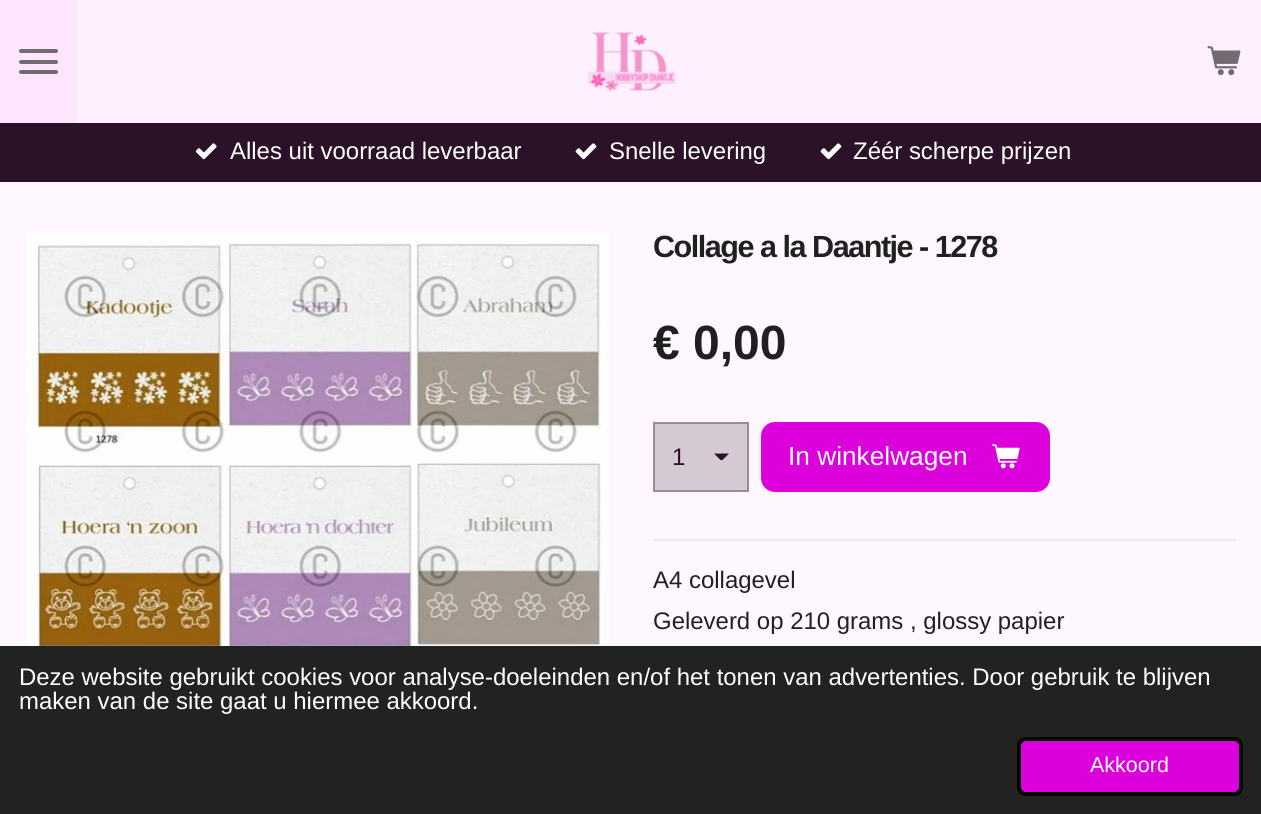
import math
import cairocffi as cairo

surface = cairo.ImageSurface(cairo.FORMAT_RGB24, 1261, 814)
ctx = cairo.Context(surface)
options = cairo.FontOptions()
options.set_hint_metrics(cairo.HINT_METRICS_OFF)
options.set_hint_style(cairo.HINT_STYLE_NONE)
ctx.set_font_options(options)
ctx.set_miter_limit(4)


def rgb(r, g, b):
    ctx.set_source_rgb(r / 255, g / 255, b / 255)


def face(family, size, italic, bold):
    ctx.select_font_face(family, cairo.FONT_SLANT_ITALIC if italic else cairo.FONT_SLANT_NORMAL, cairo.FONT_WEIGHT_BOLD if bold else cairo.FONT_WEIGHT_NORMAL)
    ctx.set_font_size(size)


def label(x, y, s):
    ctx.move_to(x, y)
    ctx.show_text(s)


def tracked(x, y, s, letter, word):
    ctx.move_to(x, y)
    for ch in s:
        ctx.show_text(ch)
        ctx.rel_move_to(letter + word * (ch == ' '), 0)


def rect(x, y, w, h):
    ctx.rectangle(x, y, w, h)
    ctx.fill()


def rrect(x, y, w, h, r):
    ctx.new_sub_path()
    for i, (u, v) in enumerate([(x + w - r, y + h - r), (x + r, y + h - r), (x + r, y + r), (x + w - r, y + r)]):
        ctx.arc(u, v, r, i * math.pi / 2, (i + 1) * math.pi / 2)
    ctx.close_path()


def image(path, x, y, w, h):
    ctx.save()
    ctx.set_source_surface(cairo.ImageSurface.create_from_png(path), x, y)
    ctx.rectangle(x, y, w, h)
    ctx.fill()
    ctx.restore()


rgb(255, 247, 255)
ctx.paint()
rgb(253, 230, 253)
rect(0, 0, 77, 123)
rgb(114, 108, 114)
rrect(19, 60, 39, 4, 2)
ctx.fill()
rrect(19, 49, 39, 4, 2)
ctx.fill()
rrect(19, 70, 39, 4, 2)
ctx.fill()
rgb(254, 240, 254)
rect(77, 0, 1184, 123)
image('image0.png', 1207, 46, 34, 30)
image('image1.png', 588, 32, 88, 60)
rgb(43, 18, 41)
rect(0, 123, 1261, 59)
image('image2.png', 195, 143, 22, 17)
face('Liberation Sans', 23.95, 0, 0)
rgb(255, 255, 255)
label(230, 159, 'Alles uit voorraad leverbaar')
image('image3.png', 575, 143, 22, 17)
label(609, 159, 'Snelle levering')
image('image3.png', 820, 143, 22, 17)
label(853, 159, 'Zéér scherpe prijzen')
image('image4.png', 26, 231, 583, 415)
face('Liberation Sans', 30.6, 0, 1)
rgb(32, 32, 32)
tracked(653, 257, 'Collage a la Daantje - 1278', -1.5, 0)
face('Liberation Sans', 48, 0, 1)
label(653, 359, '€ 0,00')
rgb(213, 201, 212)
rect(655, 424, 92, 66)
ctx.save()
ctx.rectangle(714, 453, 16, 7)
ctx.clip()
rgb(43, 18, 41)
ctx.new_path()
ctx.move_to(721.5, 461)
ctx.line_to(714, 453.5)
ctx.line_to(729, 453.5)
ctx.close_path()
ctx.fill()
ctx.restore()
ctx.rectangle(654, 423, 94, 68)
rgb(155, 138, 154)
ctx.stroke()
face('Liberation Sans', 23.95, 0, 0)
rgb(43, 18, 41)
label(672, 465, '1')
rgb(220, 0, 221)
rrect(761, 422, 289, 70, 14)
ctx.fill()
face('Liberation Sans', 26.25, 0, 0)
rgb(255, 255, 255)
label(788, 465, 'In winkelwagen')
image('image5.png', 992, 444, 28, 25)
rgb(239, 232, 239)
rect(653, 539, 583, 2)
face('Liberation Sans', 23.95, 0, 0)
rgb(32, 32, 32)
label(653, 588, 'A4 collagevel')
label(653, 629, 'Geleverd op 210 grams , glossy papier')
rgb(34, 34, 34)
rect(0, 646, 1261, 168)
rgb(255, 255, 255)
label(19, 685, 'Deze website gebruikt cookies voor analyse-doeleinden en/of het tonen van advertenties. Door gebruik te blijven')
label(19, 709, 'maken van de site gaat u hiermee akkoord.')
rgb(220, 0, 221)
rrect(1019, 739, 222, 55, 7)
ctx.fill_preserve()
rgb(0, 0, 0)
ctx.set_line_width(4)
ctx.stroke()
face('Liberation Sans', 21.5, 0, 0)
rgb(255, 255, 255)
label(1090, 772, 'Akkoord')
surface.write_to_png('render.png')
